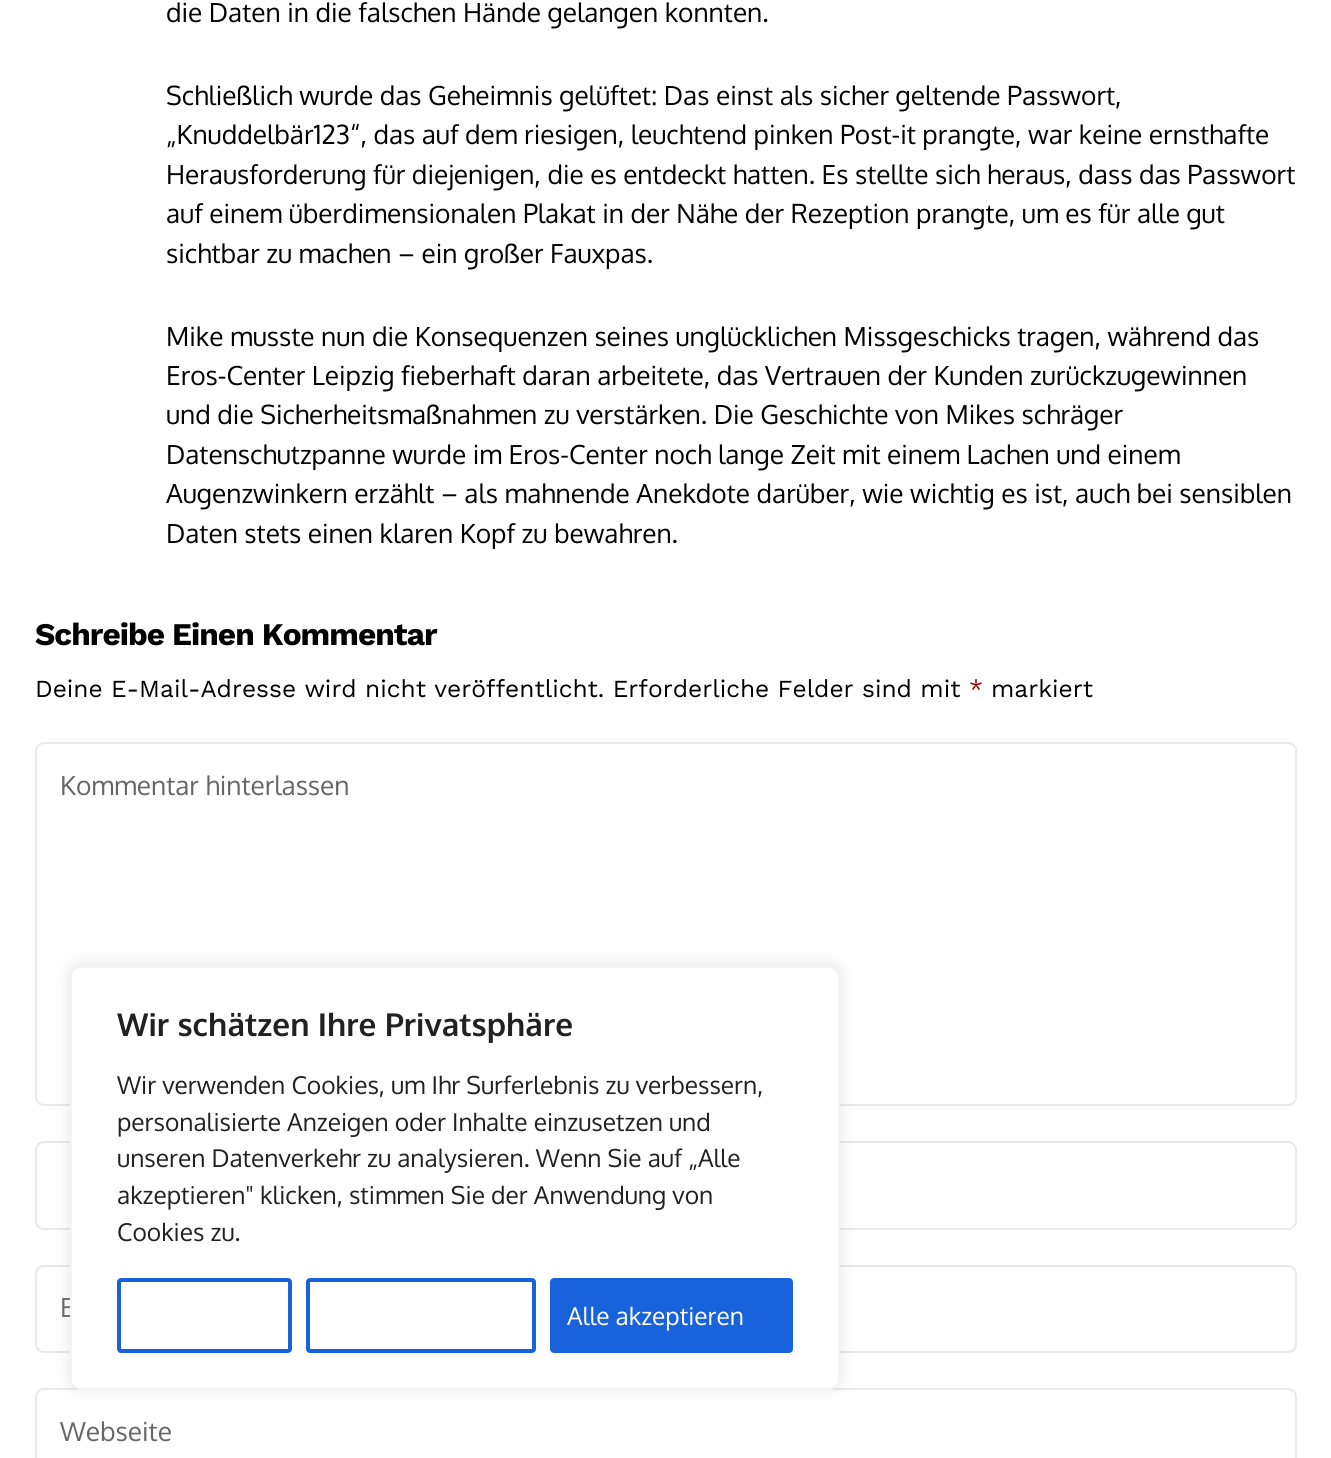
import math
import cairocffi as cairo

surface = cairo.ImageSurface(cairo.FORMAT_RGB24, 1331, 1458)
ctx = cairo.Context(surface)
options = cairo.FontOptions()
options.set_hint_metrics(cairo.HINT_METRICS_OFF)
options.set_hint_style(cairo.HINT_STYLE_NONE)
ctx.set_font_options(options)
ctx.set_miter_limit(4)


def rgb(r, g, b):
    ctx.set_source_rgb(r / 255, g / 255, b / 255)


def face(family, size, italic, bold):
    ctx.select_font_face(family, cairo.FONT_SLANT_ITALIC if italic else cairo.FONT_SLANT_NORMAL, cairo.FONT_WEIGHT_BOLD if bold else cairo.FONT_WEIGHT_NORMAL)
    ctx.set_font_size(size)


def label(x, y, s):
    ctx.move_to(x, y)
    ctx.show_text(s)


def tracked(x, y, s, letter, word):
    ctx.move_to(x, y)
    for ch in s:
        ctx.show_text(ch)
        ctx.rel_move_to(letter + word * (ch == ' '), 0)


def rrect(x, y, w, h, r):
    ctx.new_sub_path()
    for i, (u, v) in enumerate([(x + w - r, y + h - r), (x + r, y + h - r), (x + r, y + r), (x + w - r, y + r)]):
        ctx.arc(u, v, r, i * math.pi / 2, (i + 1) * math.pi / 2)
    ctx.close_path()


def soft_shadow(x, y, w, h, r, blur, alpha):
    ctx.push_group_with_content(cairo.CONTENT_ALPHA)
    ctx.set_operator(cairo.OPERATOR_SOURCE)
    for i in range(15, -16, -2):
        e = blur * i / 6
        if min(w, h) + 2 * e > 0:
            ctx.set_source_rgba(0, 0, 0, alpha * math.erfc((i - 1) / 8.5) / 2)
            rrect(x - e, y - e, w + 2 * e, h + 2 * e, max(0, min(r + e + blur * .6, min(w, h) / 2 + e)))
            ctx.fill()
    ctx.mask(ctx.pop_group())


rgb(255, 255, 255)
ctx.paint()
face('Oxygen', 26.25, 0, 0)
rgb(0, 0, 0)
label(166, 22, 'die Daten in die falschen Hände gelangen konnten.')
label(166, 105, 'Schließlich wurde das Geheimnis gelüftet: Das einst als sicher geltende Passwort,')
label(166, 144, '„Knuddelbär123“, das auf dem riesigen, leuchtend pinken Post-it prangte, war keine ernsthafte')
label(166, 184, 'Herausforderung für diejenigen, die es entdeckt hatten. Es stellte sich heraus, dass das Passwort')
label(166, 223, 'auf einem überdimensionalen Plakat in der Nähe der Rezeption prangte, um es für alle gut')
label(166, 263, 'sichtbar zu machen – ein großer Fauxpas.')
label(166, 346, 'Mike musste nun die Konsequenzen seines unglücklichen Missgeschicks tragen, während das')
label(166, 385, 'Eros-Center Leipzig fieberhaft daran arbeitete, das Vertrauen der Kunden zurückzugewinnen')
label(166, 424, 'und die Sicherheitsmaßnahmen zu verstärken. Die Geschichte von Mikes schräger')
label(166, 464, 'Datenschutzpanne wurde im Eros-Center noch lange Zeit mit einem Lachen und einem')
label(166, 503, 'Augenzwinkern erzählt – als mahnende Anekdote darüber, wie wichtig es ist, auch bei sensiblen')
label(166, 543, 'Daten stets einen klaren Kopf zu bewahren.')
face('Work Sans', 31.5, 0, 1)
tracked(35, 645, 'Schreibe Einen Kommentar', -0.95, 0)
face('Work Sans', 24.5, 0, 0)
label(35, 697, 'Deine E-Mail-Adresse wird nicht veröffentlicht. Erforderliche Felder sind mit')
rgb(153, 0, 0)
label(969, 697, '*')
rgb(0, 0, 0)
label(991, 697, 'markiert')
rrect(36, 743, 1260, 362, 8)
rgb(233, 233, 233)
ctx.stroke()
face('Oxygen', 26.25, 0, 0)
rgb(102, 102, 102)
label(60, 795, 'Kommentar hinterlassen')
rrect(36, 1142, 1260, 87, 8)
rgb(233, 233, 233)
ctx.stroke()
rrect(36, 1266, 1260, 86, 8)
ctx.stroke()
rgb(102, 102, 102)
label(60, 1317, 'E')
rrect(36, 1389, 1260, 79, 8)
rgb(233, 233, 233)
ctx.stroke()
rgb(102, 102, 102)
label(60, 1441, 'Webseite')
rgb(172, 171, 171)
soft_shadow(70, 964, 770, 424, 11, 9, 0.3)
rgb(255, 255, 255)
rrect(71, 967, 768, 422, 10)
ctx.fill_preserve()
rgb(244, 244, 244)
ctx.stroke()
face('Oxygen', 31.5, 0, 1)
rgb(33, 33, 33)
label(117, 1036, 'Wir schätzen Ihre Privatsphäre')
face('Oxygen', 24.5, 0, 0)
label(117, 1094, 'Wir verwenden Cookies, um Ihr Surferlebnis zu verbessern,')
label(117, 1131, 'personalisierte Anzeigen oder Inhalte einzusetzen und')
label(117, 1167, 'unseren Datenverkehr zu analysieren. Wenn Sie auf „Alle')
label(117, 1204, 'akzeptieren" klicken, stimmen Sie der Anwendung von')
label(117, 1241, 'Cookies zu.')
rrect(119, 1280, 171, 71, 2)
rgb(24, 99, 220)
ctx.set_line_width(4)
ctx.stroke()
rrect(308, 1280, 226, 71, 2)
ctx.stroke()
rrect(552, 1280, 239, 71, 2)
ctx.fill_preserve()
ctx.stroke()
rgb(255, 255, 255)
label(567, 1325, 'Alle akzeptieren')
surface.write_to_png('render.png')
